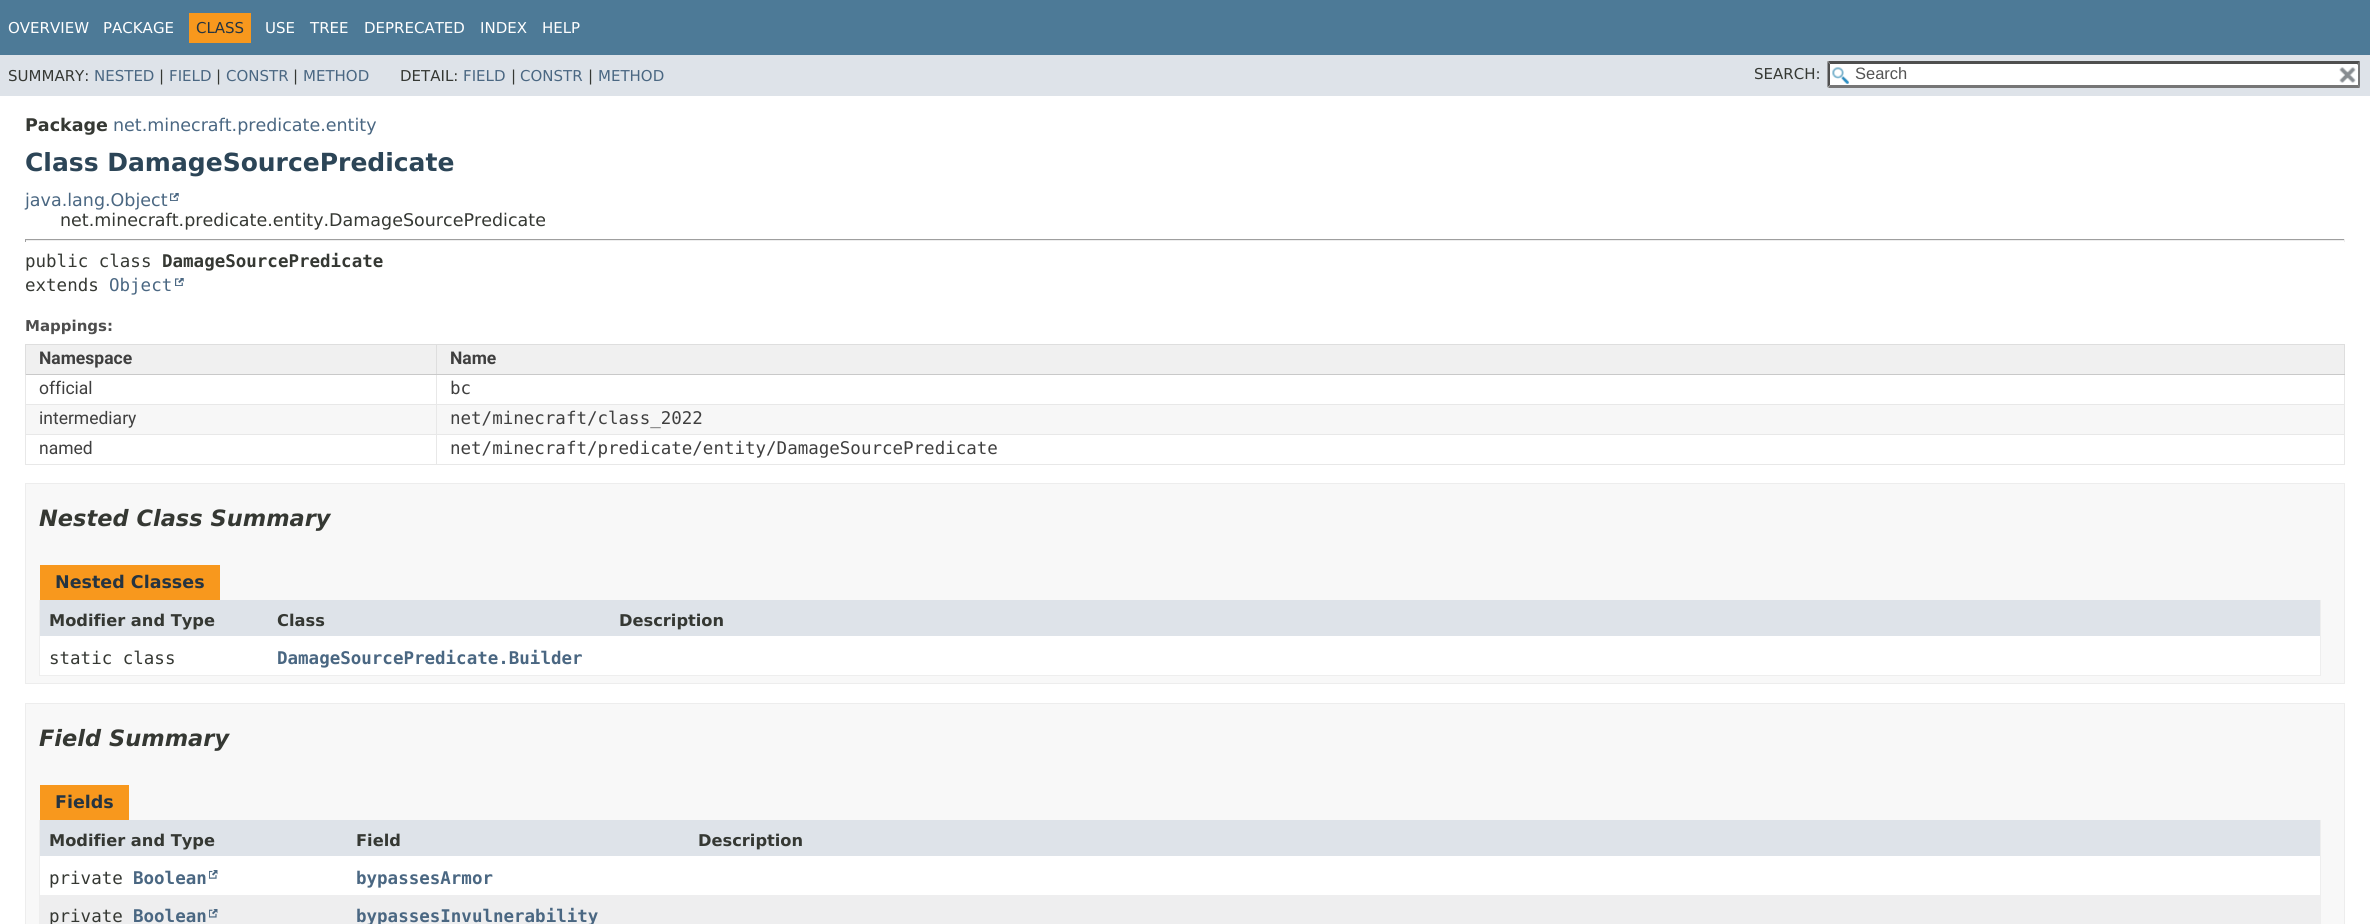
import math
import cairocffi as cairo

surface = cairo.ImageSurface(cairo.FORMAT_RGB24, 2370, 924)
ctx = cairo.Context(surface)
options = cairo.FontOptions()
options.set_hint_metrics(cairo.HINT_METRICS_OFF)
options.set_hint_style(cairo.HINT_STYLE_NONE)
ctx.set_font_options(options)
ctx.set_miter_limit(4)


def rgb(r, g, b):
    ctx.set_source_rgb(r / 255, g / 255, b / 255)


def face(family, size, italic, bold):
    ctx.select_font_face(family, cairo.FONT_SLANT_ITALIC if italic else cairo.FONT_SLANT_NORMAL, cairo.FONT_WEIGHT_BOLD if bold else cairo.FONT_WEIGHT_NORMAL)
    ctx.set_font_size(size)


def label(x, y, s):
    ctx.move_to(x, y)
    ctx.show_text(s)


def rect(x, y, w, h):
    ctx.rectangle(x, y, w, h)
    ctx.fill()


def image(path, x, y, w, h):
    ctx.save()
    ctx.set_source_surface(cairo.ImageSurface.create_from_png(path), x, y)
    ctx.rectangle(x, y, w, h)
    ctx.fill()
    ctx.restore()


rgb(255, 255, 255)
ctx.paint()
rgb(77, 122, 151)
rect(0, 0, 2370, 55)
face('DejaVu Sans', 15, 0, 0)
rgb(255, 255, 255)
label(8, 33, 'OVERVIEW')
label(103, 33, 'PACKAGE')
rgb(248, 152, 29)
rect(189, 13, 62, 30)
rgb(37, 52, 65)
label(196, 33, 'CLASS')
rgb(255, 255, 255)
label(265, 33, 'USE')
label(310, 33, 'TREE')
label(364, 33, 'DEPRECATED')
label(480, 33, 'INDEX')
label(542, 33, 'HELP')
rgb(222, 227, 233)
rect(0, 55, 2370, 41)
rgb(53, 56, 51)
label(8, 81, 'SUMMARY:')
rgb(74, 103, 130)
label(94, 81, 'NESTED')
rgb(53, 56, 51)
label(159, 81, '|')
rgb(74, 103, 130)
label(169, 81, 'FIELD')
rgb(53, 56, 51)
label(216, 81, '|')
rgb(74, 103, 130)
label(226, 81, 'CONSTR')
rgb(53, 56, 51)
label(293, 81, '|')
rgb(74, 103, 130)
label(303, 81, 'METHOD')
rgb(53, 56, 51)
label(400, 81, 'DETAIL:')
rgb(74, 103, 130)
label(463, 81, 'FIELD')
rgb(53, 56, 51)
label(511, 81, '|')
rgb(74, 103, 130)
label(520, 81, 'CONSTR')
rgb(53, 56, 51)
label(588, 81, '|')
rgb(74, 103, 130)
label(598, 81, 'METHOD')
rgb(53, 56, 51)
label(1754, 79, 'SEARCH:')
rgb(255, 255, 255)
rect(1828, 61, 532, 27)
image('image0.png', 1832, 67, 17, 17)
rgb(79, 79, 79)
ctx.new_path()
ctx.move_to(1828, 61)
ctx.line_to(2360, 61)
ctx.line_to(2358, 64)
ctx.line_to(1830, 64)
ctx.close_path()
ctx.fill()
rgb(118, 118, 118)
ctx.new_path()
ctx.move_to(2360, 61)
ctx.line_to(2360, 87.5)
ctx.line_to(2357.5, 85)
ctx.line_to(2357.5, 64)
ctx.close_path()
ctx.fill()
ctx.new_path()
ctx.move_to(2360, 88)
ctx.line_to(1828, 88)
ctx.line_to(1830, 85)
ctx.line_to(2358, 85)
ctx.close_path()
ctx.fill()
rgb(79, 79, 79)
ctx.new_path()
ctx.move_to(1827.5, 87.5)
ctx.line_to(1827.5, 61)
ctx.line_to(1830, 64)
ctx.line_to(1830, 85)
ctx.close_path()
ctx.fill()
face('Liberation Sans', 16.5, 0, 0)
rgb(84, 84, 84)
label(1855, 79, 'Search')
rgb(255, 255, 255)
rect(2357, 65, 1, 20)
image('image1.png', 2339, 67, 17, 16)
face('DejaVu Sans', 17.5, 0, 1)
rgb(53, 56, 51)
label(25, 131, 'Package')
face('DejaVu Sans', 17.5, 0, 0)
rgb(74, 103, 130)
label(113, 131, 'net.minecraft.predicate.entity')
face('DejaVu Sans', 25, 0, 1)
rgb(44, 69, 87)
label(25, 171, 'Class DamageSourcePredicate')
face('DejaVu Sans', 17.5, 0, 0)
rgb(74, 103, 130)
label(25, 206, 'java.lang.Object')
image('image2.png', 170, 193, 9, 8)
rgb(53, 56, 51)
label(60, 226, 'net.minecraft.predicate.entity.DamageSourcePredicate')
rgb(159, 159, 159)
rect(25, 239, 2320, 1)
rgb(238, 238, 238)
rect(2344, 239, 1, 3)
rect(25, 240, 2320, 1)
rgb(159, 159, 159)
rect(25, 239, 1, 3)
face('DejaVu Sans Mono', 17.5, 0, 0)
rgb(53, 56, 51)
label(25, 267, 'public class')
face('DejaVu Sans Mono', 17.5, 0, 1)
label(162, 267, 'DamageSourcePredicate')
face('DejaVu Sans Mono', 17.5, 0, 0)
label(25, 291, 'extends')
rgb(74, 103, 130)
label(109, 291, 'Object')
image('image2.png', 175, 278, 9, 8)
face('DejaVu Sans', 15, 0, 1)
rgb(78, 78, 78)
label(25, 331, 'Mappings:')
rgb(232, 232, 232)
rect(2344, 375, 1, 90)
rect(25, 464, 2320, 1)
rect(25, 375, 1, 90)
rgb(240, 240, 240)
rect(26, 345, 410, 29)
rgb(222, 222, 222)
rect(436, 344, 1909, 1)
rect(2344, 344, 1, 31)
rgb(232, 232, 232)
rect(436, 404, 1909, 1)
rgb(247, 247, 247)
rect(26, 405, 2318, 29)
rgb(232, 232, 232)
rect(436, 434, 1909, 1)
rect(436, 434, 1, 31)
rect(25, 434, 413, 1)
rect(436, 404, 1, 31)
rect(25, 404, 413, 1)
rect(436, 374, 1, 31)
rgb(201, 201, 201)
rect(436, 374, 1909, 1)
rgb(222, 222, 222)
rect(436, 344, 1, 31)
rect(25, 344, 413, 1)
rgb(201, 201, 201)
rect(25, 374, 413, 1)
rgb(222, 222, 222)
rect(25, 344, 1, 31)
face('Roboto', 17.5, 0, 1)
rgb(63, 63, 63)
label(39, 364, 'Namespace')
rgb(240, 240, 240)
rect(437, 345, 1907, 29)
rgb(63, 63, 63)
label(450, 364, 'Name')
face('Roboto', 17.5, 0, 0)
label(39, 394, 'official')
face('DejaVu Sans Mono', 17.5, 0, 0)
label(450, 394, 'bc')
face('Roboto', 17.5, 0, 0)
label(39, 424, 'intermediary')
face('DejaVu Sans Mono', 17.5, 0, 0)
label(450, 424, 'net/minecraft/class_2022')
face('Roboto', 17.5, 0, 0)
label(39, 454, 'named')
face('DejaVu Sans Mono', 17.5, 0, 0)
label(450, 454, 'net/minecraft/predicate/entity/DamageSourcePredicate')
rgb(248, 248, 248)
ctx.rectangle(25.5, 483.5, 2319, 200)
ctx.fill_preserve()
rgb(237, 237, 237)
ctx.set_line_width(1)
ctx.stroke()
face('DejaVu Sans', 22.5, 1, 1)
rgb(53, 56, 51)
label(39, 526, 'Nested Class Summary')
rgb(248, 152, 29)
rect(40, 565, 180, 35)
face('DejaVu Sans', 17.5, 0, 1)
rgb(37, 52, 65)
label(55, 588, 'Nested Classes')
rgb(238, 238, 238)
rect(2320, 600, 1, 76)
rect(39, 675, 2282, 1)
rect(39, 600, 1, 76)
rgb(222, 227, 233)
rect(40, 600, 570, 36)
face('DejaVu Sans', 16.25, 0, 1)
rgb(53, 56, 51)
label(49, 626, 'Modifier and Type')
label(277, 626, 'Class')
rgb(222, 227, 233)
rect(610, 600, 1710, 36)
rgb(53, 56, 51)
label(619, 626, 'Description')
rgb(255, 255, 255)
rect(40, 636, 570, 39)
face('DejaVu Sans Mono', 17.5, 0, 0)
rgb(53, 56, 51)
label(49, 664, 'static class')
face('DejaVu Sans Mono', 17.5, 0, 1)
rgb(74, 103, 130)
label(277, 664, 'DamageSourcePredicate.Builder')
rgb(255, 255, 255)
rect(610, 636, 1710, 39)
rgb(248, 248, 248)
ctx.rectangle(25.5, 703.5, 2319, 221)
ctx.fill_preserve()
rgb(237, 237, 237)
ctx.stroke()
face('DejaVu Sans', 22.5, 1, 1)
rgb(53, 56, 51)
label(39, 746, 'Field Summary')
rgb(248, 152, 29)
rect(40, 785, 89, 35)
face('DejaVu Sans', 17.5, 0, 1)
rgb(37, 52, 65)
label(55, 808, 'Fields')
rgb(238, 238, 238)
rect(2320, 820, 1, 104)
rect(39, 820, 1, 104)
rgb(222, 227, 233)
rect(40, 820, 650, 36)
face('DejaVu Sans', 16.25, 0, 1)
rgb(53, 56, 51)
label(49, 846, 'Modifier and Type')
label(356, 846, 'Field')
rgb(222, 227, 233)
rect(690, 820, 1630, 36)
rgb(53, 56, 51)
label(698, 846, 'Description')
rgb(255, 255, 255)
rect(40, 856, 650, 39)
face('DejaVu Sans Mono', 17.5, 0, 0)
rgb(53, 56, 51)
label(49, 884, 'private')
face('DejaVu Sans Mono', 17.5, 0, 1)
rgb(74, 103, 130)
label(133, 884, 'Boolean')
image('image3.png', 209, 870, 9, 9)
label(356, 884, 'bypassesArmor')
rgb(255, 255, 255)
rect(690, 856, 1630, 39)
rgb(238, 238, 239)
rect(40, 895, 650, 29)
face('DejaVu Sans Mono', 17.5, 0, 0)
rgb(53, 56, 51)
label(49, 922, 'private')
face('DejaVu Sans Mono', 17.5, 0, 1)
rgb(74, 103, 130)
label(133, 922, 'Boolean')
image('image4.png', 209, 909, 9, 9)
label(356, 922, 'bypassesInvulnerability')
rgb(238, 238, 239)
rect(690, 895, 1630, 29)
surface.write_to_png('render.png')
